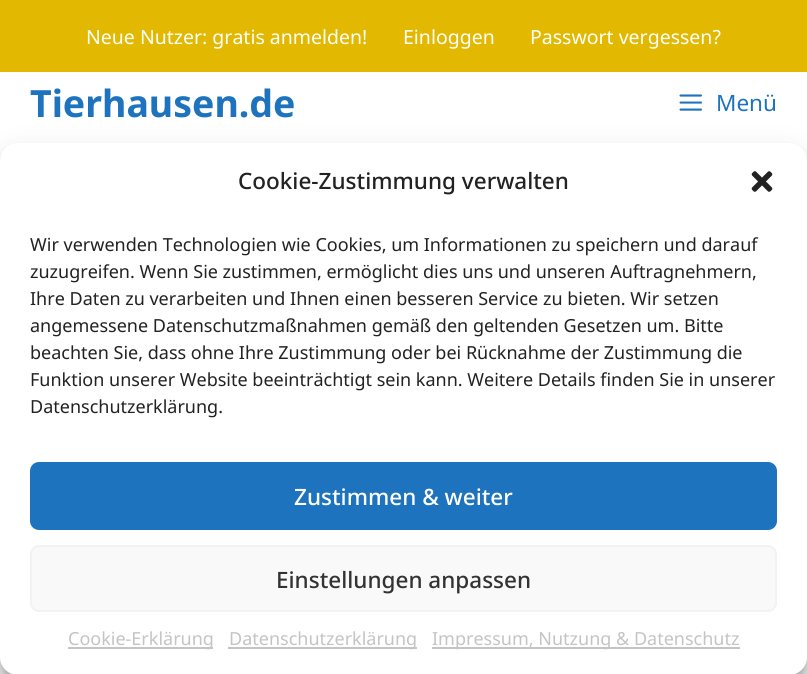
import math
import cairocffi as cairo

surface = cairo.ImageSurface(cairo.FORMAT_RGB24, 807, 674)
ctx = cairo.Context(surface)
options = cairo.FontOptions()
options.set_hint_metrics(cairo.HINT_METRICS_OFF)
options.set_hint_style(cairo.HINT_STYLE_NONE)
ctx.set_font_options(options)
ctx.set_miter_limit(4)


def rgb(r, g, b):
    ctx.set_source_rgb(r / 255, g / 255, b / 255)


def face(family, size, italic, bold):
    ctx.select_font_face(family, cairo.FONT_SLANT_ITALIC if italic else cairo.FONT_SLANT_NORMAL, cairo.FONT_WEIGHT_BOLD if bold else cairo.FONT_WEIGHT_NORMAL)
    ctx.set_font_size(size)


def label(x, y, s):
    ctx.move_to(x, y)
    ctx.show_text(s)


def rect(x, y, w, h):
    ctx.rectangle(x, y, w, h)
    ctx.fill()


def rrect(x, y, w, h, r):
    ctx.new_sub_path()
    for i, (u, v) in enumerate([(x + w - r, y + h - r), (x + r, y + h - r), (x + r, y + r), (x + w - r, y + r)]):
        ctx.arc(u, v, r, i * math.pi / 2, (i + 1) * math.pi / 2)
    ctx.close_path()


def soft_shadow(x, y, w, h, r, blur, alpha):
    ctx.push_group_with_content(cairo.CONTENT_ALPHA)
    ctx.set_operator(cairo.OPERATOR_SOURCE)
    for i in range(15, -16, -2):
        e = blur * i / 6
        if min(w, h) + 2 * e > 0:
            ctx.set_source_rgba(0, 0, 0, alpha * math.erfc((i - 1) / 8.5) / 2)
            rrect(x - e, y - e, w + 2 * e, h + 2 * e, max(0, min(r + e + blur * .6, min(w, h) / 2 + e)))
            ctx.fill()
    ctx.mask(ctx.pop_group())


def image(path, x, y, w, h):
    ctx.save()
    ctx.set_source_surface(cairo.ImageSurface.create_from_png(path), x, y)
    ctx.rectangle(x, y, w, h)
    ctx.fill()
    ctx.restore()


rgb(255, 255, 255)
ctx.paint()
rgb(226, 185, 0)
rect(0, 0, 807, 72)
face('Noto Sans', 19.5, 0, 0)
rgb(255, 255, 255)
label(86, 44, 'Neue Nutzer: gratis anmelden!')
label(403, 44, 'Einloggen')
label(530, 44, 'Passwort vergessen?')
face('Noto Sans', 37.5, 0, 1)
rgb(30, 115, 190)
label(30, 117, 'Tierhausen.de')
image('image0.png', 679, 94, 23, 17)
face('Noto Sans', 22.5, 0, 0)
label(716, 111, 'Menü')
rgb(0, 0, 0)
soft_shadow(0, 152, 807, 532, 18, 4.5, 0.23)
soft_shadow(0, 158, 807, 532, 18, 15, 0.19)
rgb(255, 255, 255)
rrect(0, 143, 807, 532, 18)
ctx.fill()
face('Noto Sans Medium', 22.5, 0, 0)
rgb(34, 34, 34)
label(238, 189, 'Cookie-Zustimmung verwalten')
image('image1.png', 751, 171, 22, 21)
face('Noto Sans', 18, 0, 0)
label(30, 251, 'Wir verwenden Technologien wie Cookies, um Informationen zu speichern und darauf')
label(30, 278, 'zuzugreifen. Wenn Sie zustimmen, ermöglicht dies uns und unseren Auftragnehmern,')
label(30, 305, 'Ihre Daten zu verarbeiten und Ihnen einen besseren Service zu bieten. Wir setzen')
label(30, 332, 'angemessene Datenschutzmaßnahmen gemäß den geltenden Gesetzen um. Bitte')
label(30, 359, 'beachten Sie, dass ohne Ihre Zustimmung oder bei Rücknahme der Zustimmung die')
label(30, 386, 'Funktion unserer Website beeinträchtigt sein kann. Weitere Details finden Sie in unserer')
label(30, 413, 'Datenschutzerklärung.')
rgb(30, 115, 190)
rrect(31, 463, 745, 66, 8)
ctx.fill_preserve()
ctx.stroke()
face('Noto Sans Medium', 22.5, 0, 0)
rgb(255, 255, 255)
label(294, 505, 'Zustimmen & weiter')
rgb(249, 249, 249)
rrect(31, 546, 745, 65, 8)
ctx.fill_preserve()
rgb(242, 242, 242)
ctx.stroke()
rgb(51, 51, 51)
label(276, 588, 'Einstellungen anpassen')
rgb(196, 196, 196)
rect(68, 647, 145, 2)
face('Noto Sans', 18, 0, 0)
label(68, 645, 'Cookie-Erklärung')
rect(228, 647, 189, 2)
label(229, 645, 'Datenschutzerklärung')
rect(432, 647, 308, 2)
label(432, 645, 'Impressum, Nutzung & Datenschutz')
surface.write_to_png('render.png')
